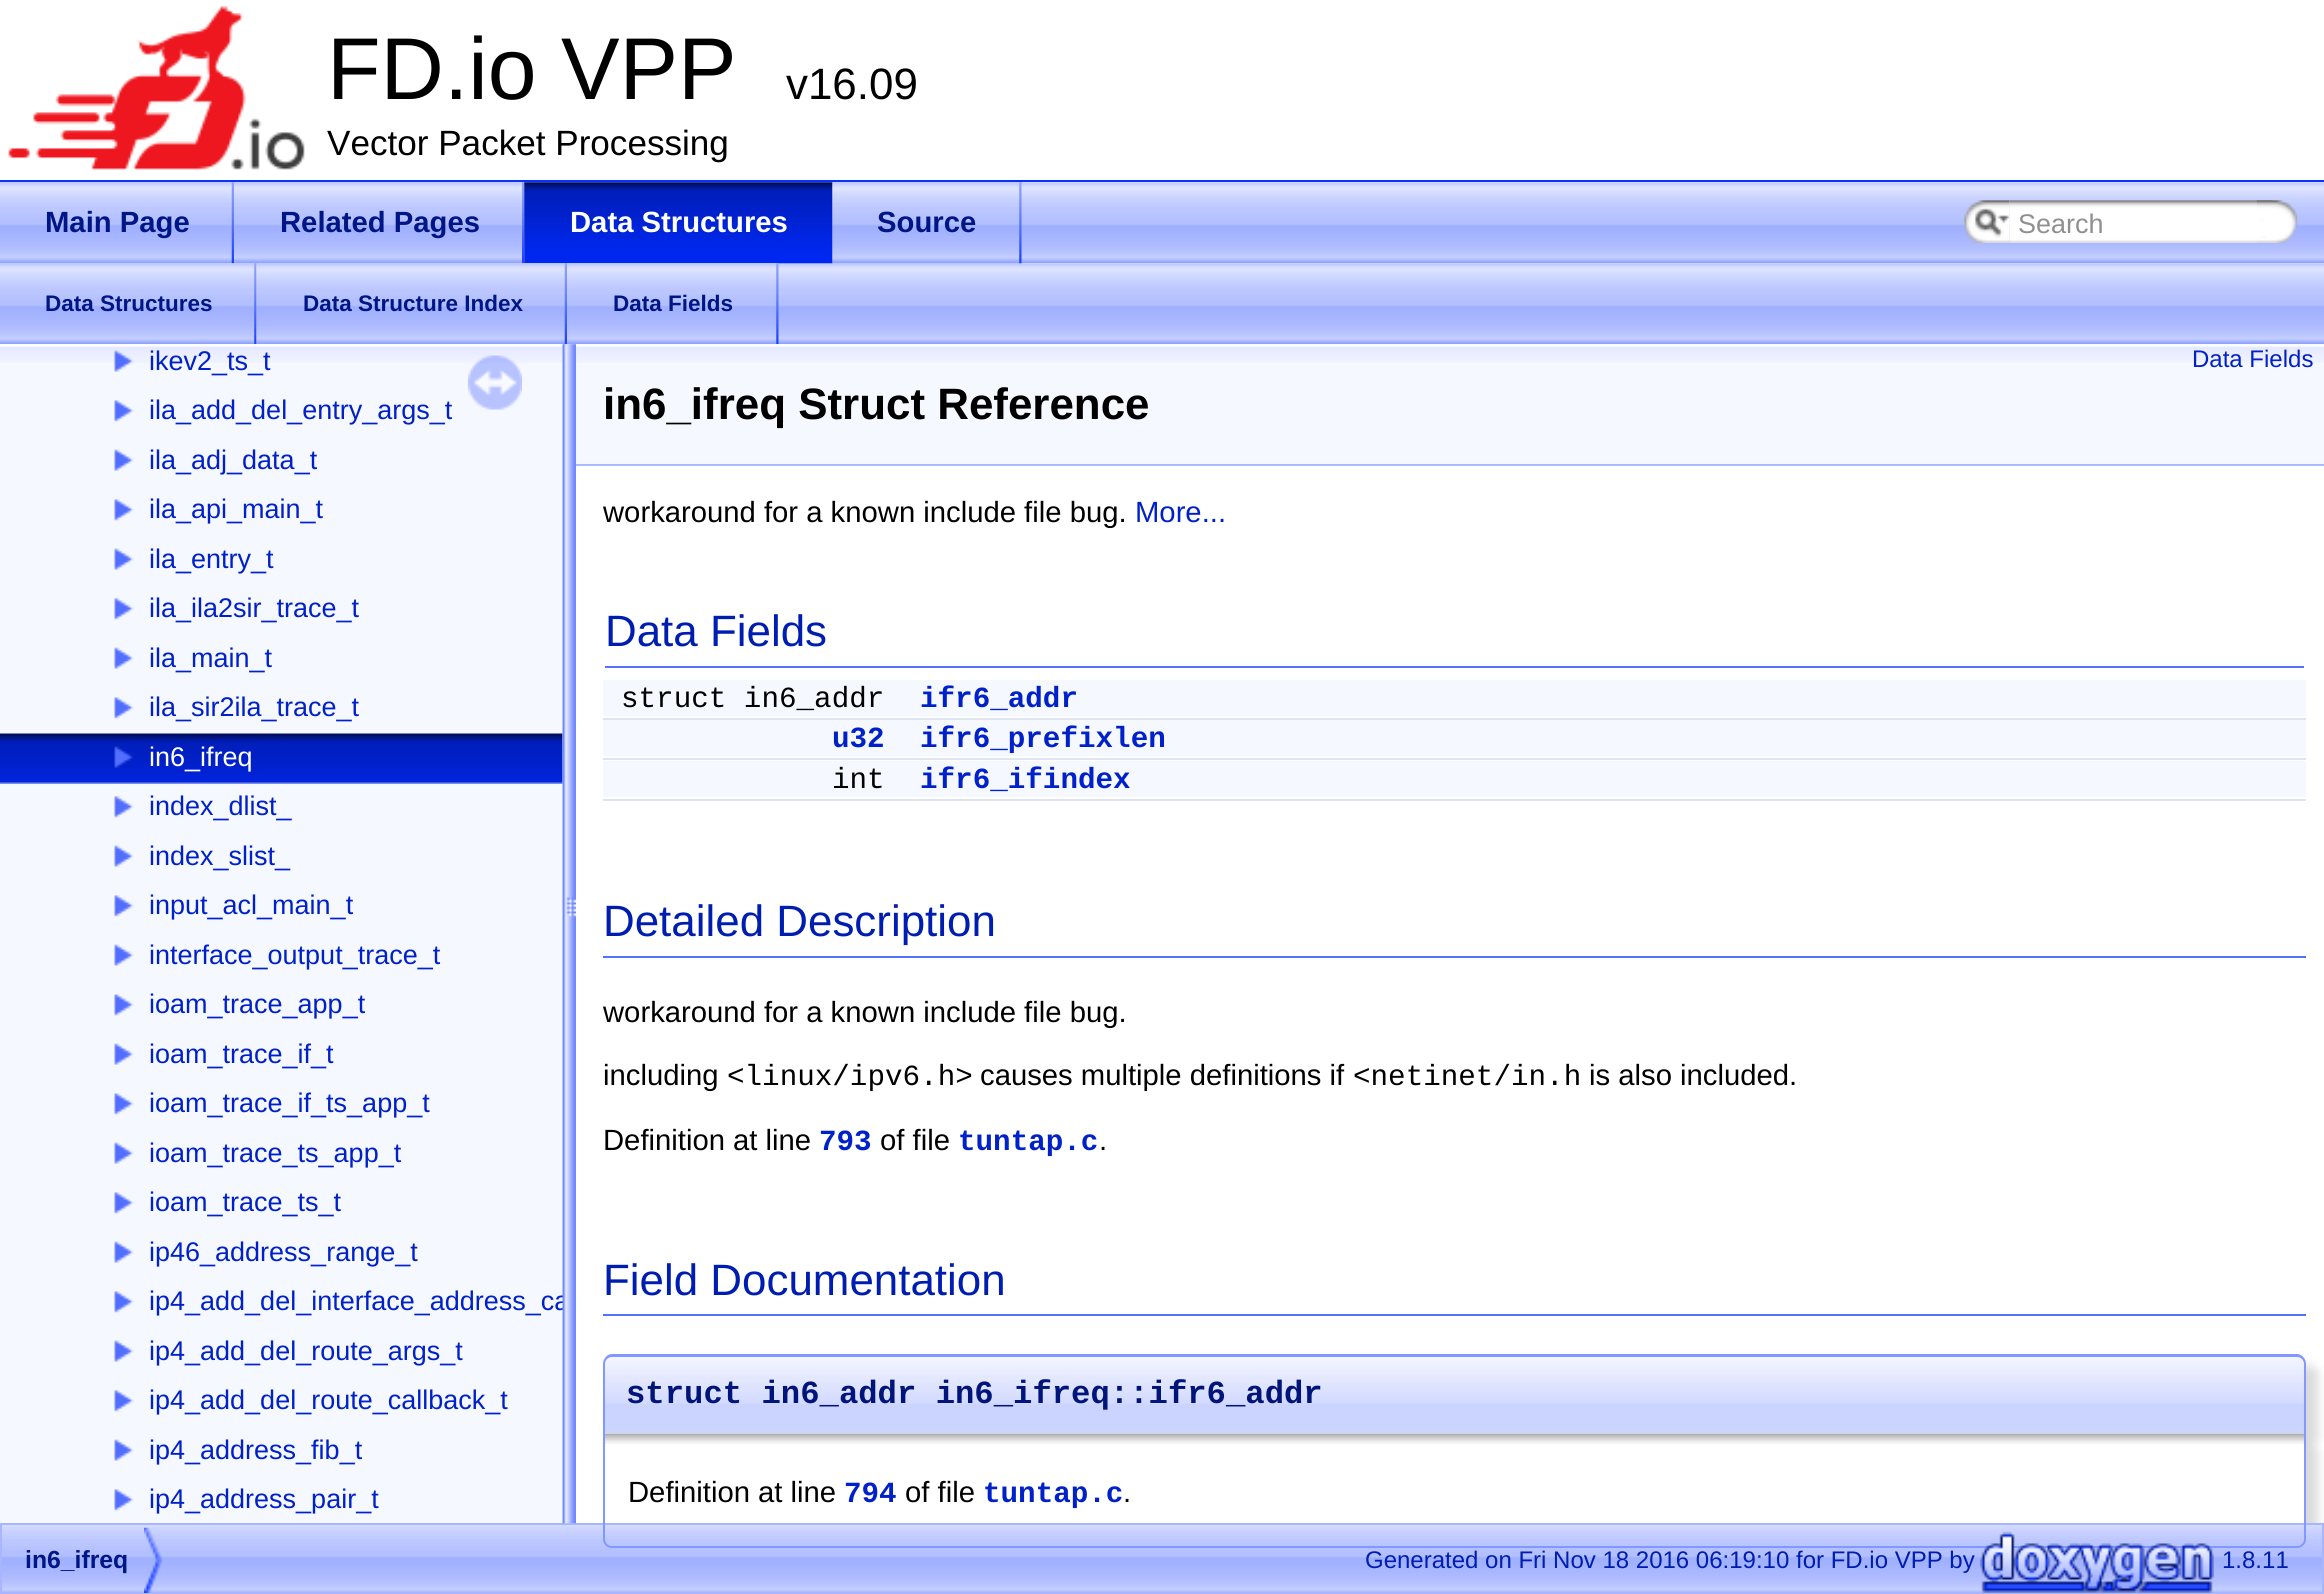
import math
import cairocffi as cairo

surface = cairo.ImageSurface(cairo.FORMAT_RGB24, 2324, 1594)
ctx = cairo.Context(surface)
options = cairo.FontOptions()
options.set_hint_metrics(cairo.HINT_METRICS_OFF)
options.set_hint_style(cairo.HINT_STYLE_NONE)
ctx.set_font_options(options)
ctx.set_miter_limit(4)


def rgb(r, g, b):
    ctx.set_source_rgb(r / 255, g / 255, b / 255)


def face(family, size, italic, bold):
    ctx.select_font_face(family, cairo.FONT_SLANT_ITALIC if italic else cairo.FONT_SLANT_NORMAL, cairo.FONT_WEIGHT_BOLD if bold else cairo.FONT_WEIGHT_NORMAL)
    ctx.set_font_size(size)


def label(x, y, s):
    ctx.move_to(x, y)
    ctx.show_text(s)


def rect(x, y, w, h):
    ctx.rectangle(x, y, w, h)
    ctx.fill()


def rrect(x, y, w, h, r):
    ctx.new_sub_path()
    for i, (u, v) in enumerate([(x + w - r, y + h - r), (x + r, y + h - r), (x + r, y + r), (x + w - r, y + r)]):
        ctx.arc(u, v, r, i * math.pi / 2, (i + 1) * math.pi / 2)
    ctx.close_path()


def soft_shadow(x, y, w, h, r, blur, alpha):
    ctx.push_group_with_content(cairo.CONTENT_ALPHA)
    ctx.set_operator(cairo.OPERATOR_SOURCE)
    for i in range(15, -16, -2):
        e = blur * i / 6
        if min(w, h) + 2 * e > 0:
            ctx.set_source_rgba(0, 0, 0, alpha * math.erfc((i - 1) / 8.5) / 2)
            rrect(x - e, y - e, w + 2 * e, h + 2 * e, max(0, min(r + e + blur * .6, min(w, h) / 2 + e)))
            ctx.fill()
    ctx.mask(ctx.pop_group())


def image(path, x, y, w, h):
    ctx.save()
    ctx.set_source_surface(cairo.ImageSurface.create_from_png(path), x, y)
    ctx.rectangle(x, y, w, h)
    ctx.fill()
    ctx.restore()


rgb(255, 255, 255)
ctx.paint()
rgb(9, 50, 255)
rect(0, 180, 2324, 2)
image('image0.png', 8, 6, 297, 164)
face('Liberation Sans', 87.75, 0, 0)
rgb(0, 0, 0)
label(327, 99, 'FD.io VPP')
face('Liberation Sans', 43.9, 0, 0)
label(786, 99, 'v16.09')
face('Liberation Sans', 35.1, 0, 0)
label(327, 155, 'Vector Packet Processing')
image('image1.png', 0, 182, 2324, 82)
image('image14.png', 0, 263, 2324, 82)
image('image2.png', 0, 182, 234, 82)
image('image3.png', 231, 182, 3, 82)
face('Liberation Sans', 29.25, 0, 1)
rgb(0, 22, 134)
label(45, 232, 'Main Page')
image('image4.png', 234, 182, 290, 82)
image('image5.png', 522, 182, 3, 82)
label(280, 232, 'Related Pages')
image('image6.png', 524, 182, 309, 82)
image('image7.png', 524, 182, 309, 82)
rgb(255, 255, 255)
label(570, 232, 'Data Structures')
image('image8.png', 832, 182, 190, 82)
image('image9.png', 1019, 182, 3, 82)
rgb(0, 22, 134)
label(877, 232, 'Source')
image('image10.png', 1964, 200, 46, 43)
image('image11.png', 1975, 208, 35, 29)
image('image12.png', 2009, 200, 264, 43)
face('Liberation Sans', 27, 0, 0)
rgb(144, 144, 144)
label(2018, 233, 'Search')
image('image13.png', 2256, 200, 42, 43)
image('image15.png', 0, 263, 257, 81)
image('image16.png', 254, 263, 3, 81)
face('Liberation Sans', 22.5, 0, 1)
rgb(0, 22, 134)
label(45, 311, 'Data Structures')
image('image17.png', 256, 263, 311, 82)
image('image18.png', 564, 263, 3, 82)
label(303, 311, 'Data Structure Index')
image('image19.png', 567, 263, 212, 82)
image('image20.png', 776, 263, 3, 81)
label(613, 311, 'Data Fields')
rgb(246, 248, 255)
rect(0, 344, 563, 1179)
image('image21.png', 0, 344, 563, 19)
image('image22.png', 114, 350, 20, 22)
face('Liberation Sans', 27, 0, 0)
rgb(0, 33, 201)
label(149, 370, 'ikev2_ts_t')
image('image23.png', 114, 400, 20, 22)
label(149, 419, 'ila_add_del_entry_args_t')
image('image24.png', 114, 449, 20, 22)
label(149, 469, 'ila_adj_data_t')
image('image23.png', 114, 499, 20, 22)
label(149, 518, 'ila_api_main_t')
image('image24.png', 114, 548, 20, 22)
label(149, 568, 'ila_entry_t')
image('image23.png', 114, 598, 20, 22)
label(149, 617, 'ila_ila2sir_trace_t')
image('image24.png', 114, 647, 20, 22)
label(149, 667, 'ila_main_t')
image('image23.png', 114, 697, 20, 22)
label(149, 716, 'ila_sir2ila_trace_t')
image('image25.png', 0, 733, 563, 51)
image('image26.png', 114, 746, 19, 22)
rgb(255, 255, 255)
label(149, 766, 'in6_ifreq')
image('image23.png', 114, 796, 20, 22)
rgb(0, 33, 201)
label(149, 815, 'index_dlist_')
image('image24.png', 114, 845, 20, 22)
label(149, 865, 'index_slist_')
image('image23.png', 114, 895, 20, 22)
label(149, 914, 'input_acl_main_t')
image('image24.png', 114, 944, 20, 22)
label(149, 964, 'interface_output_trace_t')
image('image27.png', 114, 994, 20, 22)
label(149, 1013, 'ioam_trace_app_t')
image('image28.png', 114, 1043, 20, 22)
label(149, 1063, 'ioam_trace_if_t')
image('image23.png', 114, 1093, 20, 22)
label(149, 1112, 'ioam_trace_if_ts_app_t')
image('image29.png', 114, 1142, 20, 22)
label(149, 1162, 'ioam_trace_ts_app_t')
image('image23.png', 114, 1192, 20, 22)
label(149, 1211, 'ioam_trace_ts_t')
image('image24.png', 114, 1241, 20, 22)
label(149, 1261, 'ip46_address_range_t')
image('image23.png', 114, 1291, 20, 22)
label(149, 1310, 'ip4_add_del_interface_address_ca')
image('image24.png', 114, 1340, 20, 22)
label(149, 1360, 'ip4_add_del_route_args_t')
image('image23.png', 114, 1390, 20, 22)
label(149, 1409, 'ip4_add_del_route_callback_t')
image('image24.png', 114, 1439, 20, 22)
label(149, 1459, 'ip4_address_fib_t')
image('image23.png', 114, 1489, 20, 22)
label(149, 1508, 'ip4_address_pair_t')
image('image30.png', 468, 355, 54, 55)
rgb(0, 0, 0)
soft_shadow(614, 1366, 1704, 79, 9, 5.5, 0.15)
image('image33.png', 603, 1356, 1703, 77)
rgb(130, 151, 255)
ctx.set_fill_rule(cairo.FILL_RULE_EVEN_ODD)
ctx.new_path()
ctx.move_to(612, 1354)
ctx.line_to(2297, 1354)
ctx.curve_to(2302, 1354, 2306, 1359, 2306, 1364)
ctx.line_to(2306, 1433)
ctx.line_to(603, 1433)
ctx.line_to(603, 1364)
ctx.curve_to(603, 1359, 607, 1354, 612, 1354)
ctx.close_path()
ctx.move_to(612, 1357)
ctx.line_to(2297, 1357)
ctx.curve_to(2301, 1357, 2304, 1360, 2304, 1364)
ctx.line_to(2304, 1433)
ctx.line_to(605, 1433)
ctx.line_to(605, 1364)
ctx.curve_to(605, 1360, 608, 1357, 612, 1357)
ctx.close_path()
ctx.fill()
rgb(0, 0, 0)
soft_shadow(614, 1445, 1704, 114, 9, 5.5, 0.15)
image('image35.png', 2, 1525, 2320, 68)
ctx.rectangle(1, 1524, 2322, 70)
rgb(168, 182, 255)
ctx.stroke()
image('image31.png', 562, 344, 14, 1180)
rgb(246, 248, 255)
rect(576, 344, 1748, 120)
image('image32.png', 576, 344, 1748, 19)
rgb(171, 185, 254)
rect(576, 464, 1748, 2)
face('Liberation Sans', 24, 0, 0)
rgb(0, 33, 201)
label(2192, 367, 'Data Fields')
face('Liberation Sans', 43.9, 0, 1)
rgb(0, 0, 0)
label(603, 419, 'in6_ifreq Struct Reference')
face('Liberation Sans', 29.25, 0, 0)
label(603, 522, 'workaround for a known include file bug.')
rgb(0, 33, 201)
label(1135, 522, 'More...')
rgb(83, 112, 255)
rect(605, 666, 1699, 2)
face('Liberation Sans', 43.9, 0, 0)
rgb(0, 29, 177)
label(605, 646, 'Data Fields')
rgb(246, 248, 255)
rect(603, 680, 1703, 36)
face('Liberation Mono', 29.25, 0, 0)
rgb(0, 0, 0)
label(621, 707, 'struct in6_addr')
face('Liberation Mono', 29.25, 0, 1)
rgb(0, 33, 201)
label(920, 707, 'ifr6_addr')
rgb(222, 228, 240)
rect(603, 718, 1703, 2)
rgb(246, 248, 255)
rect(603, 720, 1703, 36)
rgb(0, 33, 201)
label(832, 747, 'u32')
label(920, 747, 'ifr6_prefixlen')
rgb(222, 228, 240)
rect(603, 758, 1703, 2)
rgb(246, 248, 255)
rect(603, 761, 1703, 36)
face('Liberation Mono', 29.25, 0, 0)
rgb(0, 0, 0)
label(832, 788, 'int')
face('Liberation Mono', 29.25, 0, 1)
rgb(0, 33, 201)
label(920, 788, 'ifr6_ifindex')
rgb(222, 228, 240)
rect(603, 799, 1703, 2)
rgb(83, 112, 255)
rect(603, 956, 1703, 2)
face('Liberation Sans', 43.9, 0, 0)
rgb(0, 29, 177)
label(603, 936, 'Detailed Description')
face('Liberation Sans', 29.25, 0, 0)
rgb(0, 0, 0)
label(603, 1022, 'workaround for a known include file bug.')
label(603, 1085, 'including')
face('Liberation Mono', 29.25, 0, 0)
label(727, 1085, '<linux/ipv6.h>')
face('Liberation Sans', 29.25, 0, 0)
label(980, 1085, 'causes multiple definitions if')
face('Liberation Mono', 29.25, 0, 0)
label(1353, 1085, '<netinet/in.h')
face('Liberation Sans', 29.25, 0, 0)
label(1589, 1085, 'is also included.')
label(603, 1150, 'Definition at line')
face('Liberation Mono', 29.25, 0, 1)
rgb(0, 33, 201)
label(819, 1150, '793')
face('Liberation Sans', 29.25, 0, 0)
rgb(0, 0, 0)
label(880, 1150, 'of file')
face('Liberation Mono', 29.25, 0, 1)
rgb(0, 33, 201)
label(958, 1150, 'tuntap.c')
face('Liberation Sans', 29.25, 0, 0)
rgb(0, 0, 0)
label(1099, 1150, '.')
rgb(83, 112, 255)
rect(603, 1314, 1703, 2)
face('Liberation Sans', 43.9, 0, 0)
rgb(0, 29, 177)
label(603, 1295, 'Field Documentation')
face('Liberation Mono', 32.25, 0, 1)
rgb(0, 20, 122)
label(626, 1403, 'struct in6_addr in6_ifreq::ifr6_addr')
rgb(255, 255, 255)
rect(606, 1433, 1698, 90)
image('image34.png', 605, 1433, 1699, 11)
rgb(130, 151, 255)
ctx.new_path()
ctx.move_to(603, 1433)
ctx.line_to(2306, 1433)
ctx.line_to(2306, 1539)
ctx.curve_to(2306, 1544, 2302, 1548, 2297, 1548)
ctx.line_to(612, 1548)
ctx.curve_to(607, 1548, 603, 1544, 603, 1539)
ctx.close_path()
ctx.move_to(605, 1433)
ctx.line_to(2304, 1433)
ctx.line_to(2304, 1539)
ctx.curve_to(2304, 1543, 2301, 1546, 2297, 1546)
ctx.line_to(612, 1546)
ctx.curve_to(608, 1546, 605, 1543, 605, 1539)
ctx.close_path()
ctx.fill()
face('Liberation Sans', 29.25, 0, 0)
rgb(0, 0, 0)
label(628, 1502, 'Definition at line')
face('Liberation Mono', 29.25, 0, 1)
rgb(0, 33, 201)
label(844, 1502, '794')
face('Liberation Sans', 29.25, 0, 0)
rgb(0, 0, 0)
label(905, 1502, 'of file')
face('Liberation Mono', 29.25, 0, 1)
rgb(0, 33, 201)
label(983, 1502, 'tuntap.c')
face('Liberation Sans', 29.25, 0, 0)
rgb(0, 0, 0)
label(1123, 1502, '.')
image('image36.png', 144, 1527, 18, 66)
face('Liberation Sans', 24.75, 0, 1)
rgb(0, 22, 134)
label(25, 1568, 'in6_ifreq')
face('Liberation Sans', 24, 0, 0)
rgb(0, 29, 177)
label(1365, 1568, 'Generated on Fri Nov 18 2016 06:19:10 for FD.io VPP by')
image('image37.png', 1980, 1531, 234, 62)
label(2222, 1568, '1.8.11')
surface.write_to_png('render.png')
